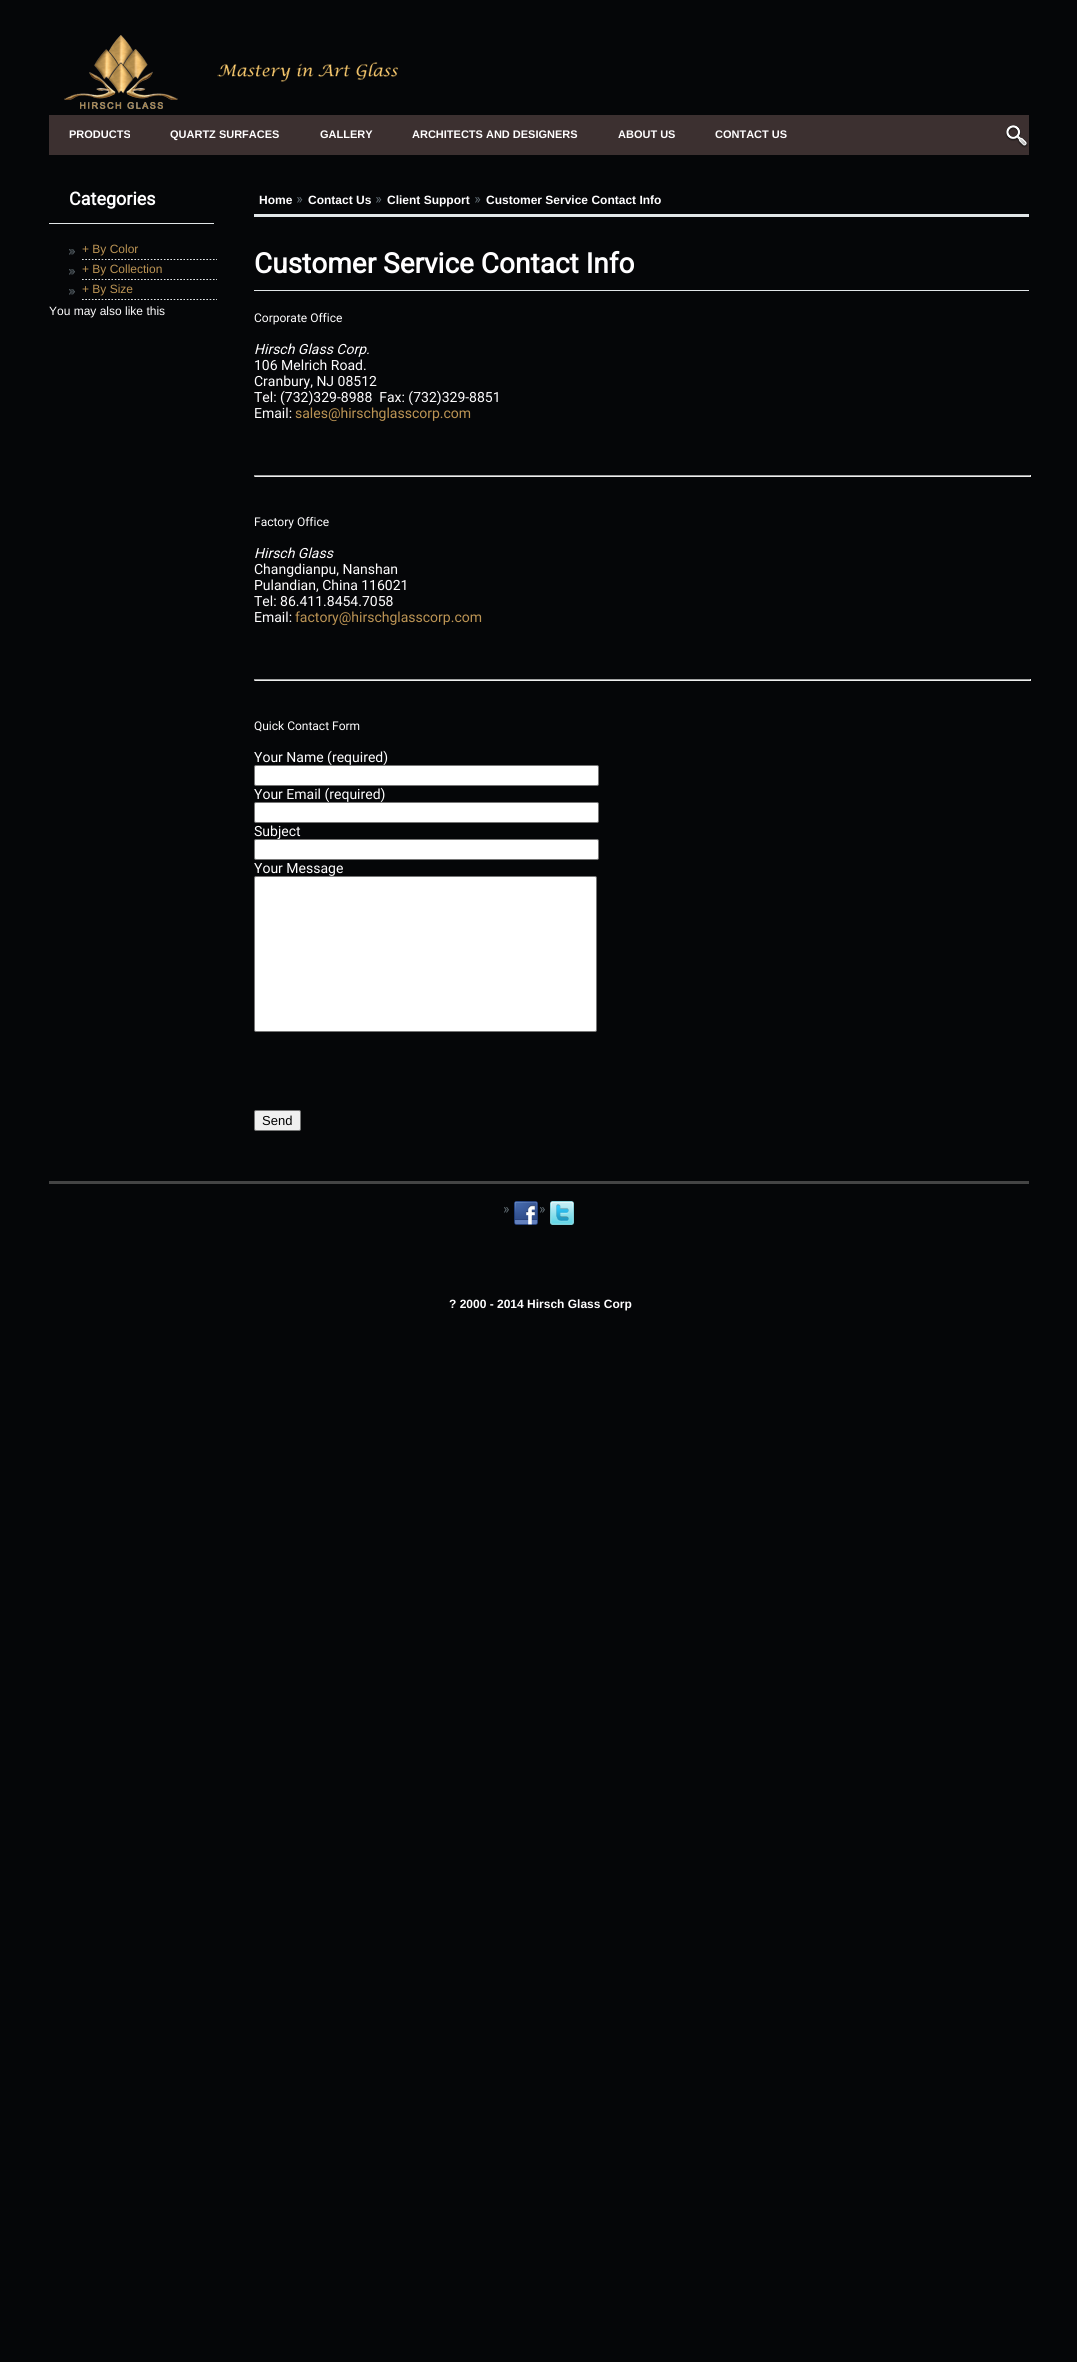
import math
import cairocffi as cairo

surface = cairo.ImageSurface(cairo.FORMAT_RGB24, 1077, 2362)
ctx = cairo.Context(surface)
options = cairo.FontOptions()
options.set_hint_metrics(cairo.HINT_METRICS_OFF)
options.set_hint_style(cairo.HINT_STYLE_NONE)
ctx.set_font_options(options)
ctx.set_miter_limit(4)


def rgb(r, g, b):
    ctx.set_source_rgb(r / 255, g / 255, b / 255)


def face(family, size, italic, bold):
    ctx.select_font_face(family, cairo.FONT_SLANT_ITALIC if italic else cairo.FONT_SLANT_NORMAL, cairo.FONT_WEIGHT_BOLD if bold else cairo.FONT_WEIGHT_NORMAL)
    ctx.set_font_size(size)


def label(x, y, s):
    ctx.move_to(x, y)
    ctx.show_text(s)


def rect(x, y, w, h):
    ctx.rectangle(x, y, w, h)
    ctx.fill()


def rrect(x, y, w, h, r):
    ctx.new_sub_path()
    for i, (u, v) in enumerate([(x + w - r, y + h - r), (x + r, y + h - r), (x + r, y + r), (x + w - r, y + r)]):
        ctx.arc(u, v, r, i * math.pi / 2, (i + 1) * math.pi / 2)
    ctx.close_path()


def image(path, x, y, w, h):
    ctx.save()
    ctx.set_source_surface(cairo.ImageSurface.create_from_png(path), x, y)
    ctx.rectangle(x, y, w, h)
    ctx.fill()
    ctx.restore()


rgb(5, 6, 8)
ctx.paint()
image('image0.png', 64, 35, 334, 74)
rgb(60, 48, 48)
rect(49, 115, 980, 40)
face('Liberation Sans', 11, 0, 1)
rgb(255, 254, 255)
label(69, 138, 'PRODUCTS')
label(170, 138, 'QUARTZ SURFACES')
label(320, 138, 'GALLERY')
label(412, 138, 'ARCHITECTS AND DESIGNERS')
label(618, 138, 'ABOUT US')
label(715, 138, 'CONTACT US')
image('image1.png', 1005, 125, 23, 23)
rgb(226, 230, 232)
rect(49, 223, 165, 1)
face('Roboto', 18, 0, 1)
rgb(255, 254, 255)
label(69, 205, 'Categories')
image('image2.png', 69, 249, 6, 6)
face('Liberation Sans', 12, 0, 0)
rgb(188, 148, 84)
label(82, 253, '+ By Color')
image('image3.png', 82, 259, 135, 1)
image('image2.png', 69, 269, 6, 6)
label(82, 273, '+ By Collection')
image('image3.png', 82, 279, 135, 1)
image('image2.png', 69, 289, 6, 6)
label(82, 293, '+ By Size')
image('image3.png', 82, 299, 135, 1)
rgb(255, 254, 255)
label(49, 315, 'You may also like this')
rgb(226, 230, 232)
rect(254, 214, 775, 3)
face('Liberation Sans', 12, 0, 1)
rgb(255, 254, 255)
label(259, 204, 'Home')
image('image4.png', 297, 197, 6, 6)
label(308, 204, 'Contact Us')
image('image4.png', 376, 197, 6, 6)
label(387, 204, 'Client Support')
image('image4.png', 475, 197, 6, 6)
label(486, 204, 'Customer Service Contact Info')
rgb(226, 230, 232)
rect(254, 290, 775, 1)
face('Roboto', 28, 0, 1)
rgb(255, 254, 255)
label(254, 273, 'Customer Service Contact Info')
face('Roboto', 12, 0, 0)
label(254, 322, 'Corporate Office')
face('Roboto', 14, 1, 0)
label(254, 354, 'Hirsch Glass Corp.')
face('Roboto', 14, 0, 0)
label(254, 370, '106 Melrich Road.')
label(254, 386, 'Cranbury, NJ 08512')
label(254, 402, 'Tel: (732)329-8988  Fax: (732)329-8851')
label(254, 418, 'Email:')
rgb(188, 148, 84)
label(295, 418, 'sales@hirschglasscorp.com')
rgb(159, 159, 159)
rect(254, 475, 777, 1)
rgb(238, 238, 238)
rect(1030, 475, 1, 2)
rect(254, 476, 777, 1)
rgb(159, 159, 159)
rect(254, 475, 1, 2)
face('Roboto', 12, 0, 0)
rgb(255, 254, 255)
label(254, 526, 'Factory Office')
face('Roboto', 14, 1, 0)
label(254, 558, 'Hirsch Glass')
face('Roboto', 14, 0, 0)
label(254, 574, 'Changdianpu, Nanshan')
label(254, 590, 'Pulandian, China 116021')
label(254, 606, 'Tel: 86.411.8454.7058')
label(254, 622, 'Email:')
rgb(188, 148, 84)
label(295, 622, 'factory@hirschglasscorp.com')
rgb(159, 159, 159)
rect(254, 679, 777, 1)
rgb(238, 238, 238)
rect(1030, 679, 1, 2)
rect(254, 680, 777, 1)
rgb(159, 159, 159)
rect(254, 679, 1, 2)
face('Roboto', 12, 0, 0)
rgb(255, 254, 255)
label(254, 730, 'Quick Contact Form')
face('Roboto', 14, 0, 0)
label(254, 762, 'Your Name (required)')
rgb(255, 255, 255)
rrect(254.5, 765.5, 344, 20, 1.5)
ctx.fill_preserve()
rgb(118, 118, 118)
ctx.set_line_width(1)
ctx.stroke()
rgb(255, 254, 255)
label(254, 799, 'Your Email (required)')
rgb(255, 255, 255)
rrect(254.5, 802.5, 344, 20, 1.5)
ctx.fill_preserve()
rgb(118, 118, 118)
ctx.stroke()
rgb(255, 254, 255)
label(254, 836, 'Subject')
rgb(255, 255, 255)
rrect(254.5, 839.5, 344, 20, 1.5)
ctx.fill_preserve()
rgb(118, 118, 118)
ctx.stroke()
rgb(255, 254, 255)
label(254, 873, 'Your Message')
rgb(255, 255, 255)
rrect(254.5, 876.5, 342, 155, 1.5)
ctx.fill_preserve()
rgb(118, 118, 118)
ctx.stroke()
rgb(239, 239, 239)
rrect(254.5, 1110.5, 46, 20, 1.5)
ctx.fill_preserve()
rgb(118, 118, 118)
ctx.stroke()
face('Liberation Sans', 13, 0, 0)
rgb(0, 0, 0)
label(262, 1125, 'Send')
rgb(68, 68, 68)
rect(49, 1181, 980, 3)
image('image5.png', 504, 1207, 5, 6)
image('image6.png', 514, 1201, 24, 24)
image('image5.png', 540, 1207, 5, 6)
image('image7.png', 550, 1201, 24, 24)
face('Liberation Sans', 12, 0, 1)
rgb(255, 254, 255)
label(449, 1308, '? 2000 - 2014 Hirsch Glass Corp')
surface.write_to_png('render.png')
